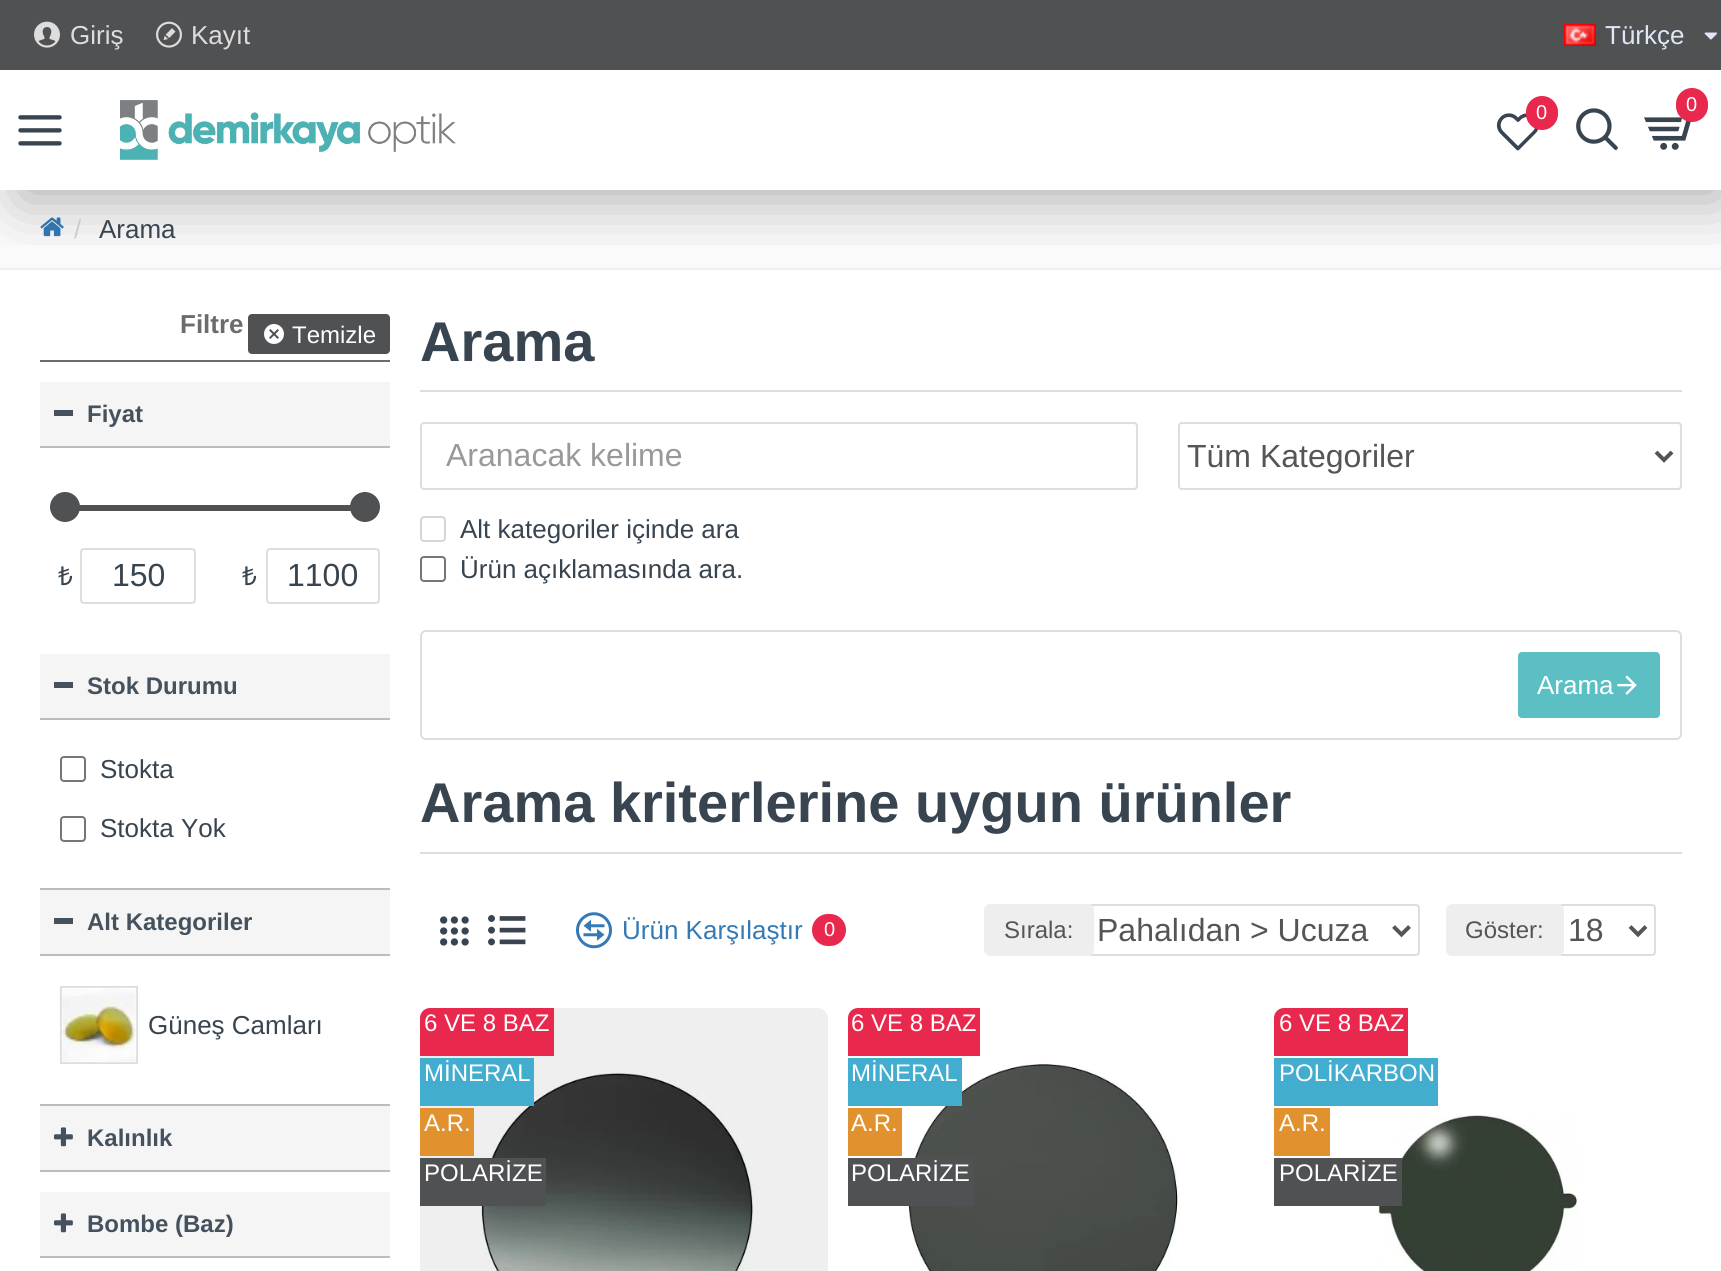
import math
import cairocffi as cairo

surface = cairo.ImageSurface(cairo.FORMAT_RGB24, 1721, 1271)
ctx = cairo.Context(surface)
options = cairo.FontOptions()
options.set_hint_metrics(cairo.HINT_METRICS_OFF)
options.set_hint_style(cairo.HINT_STYLE_NONE)
ctx.set_font_options(options)
ctx.set_miter_limit(4)


def rgb(r, g, b):
    ctx.set_source_rgb(r / 255, g / 255, b / 255)


def face(family, size, italic, bold):
    ctx.select_font_face(family, cairo.FONT_SLANT_ITALIC if italic else cairo.FONT_SLANT_NORMAL, cairo.FONT_WEIGHT_BOLD if bold else cairo.FONT_WEIGHT_NORMAL)
    ctx.set_font_size(size)


def label(x, y, s):
    ctx.move_to(x, y)
    ctx.show_text(s)


def rect(x, y, w, h):
    ctx.rectangle(x, y, w, h)
    ctx.fill()


def rrect(x, y, w, h, r):
    ctx.new_sub_path()
    for i, (u, v) in enumerate([(x + w - r, y + h - r), (x + r, y + h - r), (x + r, y + r), (x + w - r, y + r)]):
        ctx.arc(u, v, r, i * math.pi / 2, (i + 1) * math.pi / 2)
    ctx.close_path()


def soft_shadow(x, y, w, h, r, blur, alpha):
    ctx.push_group_with_content(cairo.CONTENT_ALPHA)
    ctx.set_operator(cairo.OPERATOR_SOURCE)
    for i in range(15, -16, -2):
        e = blur * i / 6
        if min(w, h) + 2 * e > 0:
            ctx.set_source_rgba(0, 0, 0, alpha * math.erfc((i - 1) / 8.5) / 2)
            rrect(x - e, y - e, w + 2 * e, h + 2 * e, max(0, min(r + e + blur * .6, min(w, h) / 2 + e)))
            ctx.fill()
    ctx.mask(ctx.pop_group())


def image(path, x, y, w, h):
    ctx.save()
    ctx.set_source_surface(cairo.ImageSurface.create_from_png(path), x, y)
    ctx.rectangle(x, y, w, h)
    ctx.fill()
    ctx.restore()


rgb(255, 255, 255)
ctx.paint()
rgb(250, 250, 250)
rect(0, 190, 1721, 78)
rgb(238, 238, 238)
rect(0, 268, 1721, 2)
image('image9.png', 40, 217, 24, 20)
ctx.save()
ctx.rectangle(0, 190, 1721, 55)
ctx.clip()
rgb(0, 0, 0)
soft_shadow(20, 100, 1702, 100, 0, 30, 0.3)
ctx.restore()
rgb(80, 81, 83)
rect(0, 0, 1721, 70)
image('image0.png', 34, 21, 26, 27)
face('Liberation Sans', 26, 0, 0)
rgb(221, 221, 221)
label(70, 44, 'Giriş')
image('image1.png', 156, 21, 26, 27)
label(191, 44, 'Kayıt')
image('image2.png', 1564, 24, 32, 22)
rgb(223, 231, 247)
label(1605, 44, 'Türkçe')
image('image3.png', 1704, 32, 14, 8)
image('image4.png', 120, 100, 336, 60)
image('image5.png', 18, 115, 44, 31)
image('image6.png', 1496, 113, 43, 38)
rgb(232, 40, 77)
rrect(1526, 96, 32, 34, 16)
ctx.fill()
face('Liberation Sans', 20, 0, 0)
rgb(255, 255, 255)
label(1536, 119, '0')
image('image7.png', 1576, 108, 42, 42)
image('image8.png', 1644, 117, 47, 33)
rgb(232, 40, 77)
rrect(1676, 88, 32, 34, 16)
ctx.fill()
rgb(255, 255, 255)
label(1686, 111, '0')
face('Liberation Sans', 26, 0, 0)
rgb(204, 204, 204)
label(74, 238, '/')
rgb(56, 68, 79)
label(99, 238, 'Arama')
rgb(108, 108, 108)
rect(40, 360, 350, 2)
face('Liberation Sans', 26, 0, 1)
label(180, 333, 'Filtre')
rgb(80, 81, 82)
rrect(248, 314, 142, 40, 4)
ctx.fill()
image('image10.png', 264, 324, 20, 20)
face('Liberation Sans', 24, 0, 0)
rgb(255, 255, 255)
label(292, 343, 'Temizle')
rgb(245, 245, 245)
rect(40, 382, 350, 64)
rgb(189, 189, 189)
rect(40, 446, 350, 2)
rgb(69, 82, 94)
rect(54, 410, 19, 6)
face('Liberation Sans', 24, 0, 1)
label(87, 422, 'Fiyat')
rgb(80, 81, 82)
ctx.new_path()
ctx.move_to(76, 505)
ctx.line_to(356, 505)
ctx.line_to(362, 506)
ctx.curve_to(367, 507, 367, 509, 362, 511)
ctx.line_to(356, 511)
ctx.line_to(76, 511)
ctx.curve_to(63, 511, 63, 505, 76, 505)
ctx.close_path()
ctx.fill()
ctx.arc(65, 507, 15, 0, 2 * math.pi)
ctx.fill()
ctx.arc(365, 507, 15, 0, 2 * math.pi)
ctx.fill()
face('Noto Sans', 26, 0, 0)
rgb(56, 68, 79)
label(58, 585, '₺')
rrect(81, 549, 114, 54, 3)
rgb(221, 221, 221)
ctx.stroke()
face('Liberation Sans', 32, 0, 0)
rgb(56, 68, 79)
label(112, 586, '150')
face('Noto Sans', 26, 0, 0)
label(242, 585, '₺')
rrect(267, 549, 112, 54, 3)
rgb(221, 221, 221)
ctx.stroke()
face('Liberation Sans', 32, 0, 0)
rgb(56, 68, 79)
label(287, 586, '1100')
rgb(245, 245, 245)
rect(40, 654, 350, 64)
rgb(189, 189, 189)
rect(40, 718, 350, 2)
rgb(69, 82, 94)
rect(54, 682, 19, 6)
face('Liberation Sans', 24, 0, 1)
label(87, 694, 'Stok Durumu')
rrect(61, 757, 24, 24, 3)
rgb(118, 118, 118)
ctx.stroke()
face('Liberation Sans', 26, 0, 0)
rgb(56, 68, 79)
label(100, 778, 'Stokta')
rrect(61, 817, 24, 24, 3)
rgb(118, 118, 118)
ctx.stroke()
rgb(56, 68, 79)
label(100, 837, 'Stokta Yok')
rgb(245, 245, 245)
rect(40, 890, 350, 64)
rgb(189, 189, 189)
rect(40, 888, 350, 2)
rect(40, 954, 350, 2)
rgb(69, 82, 94)
rect(54, 918, 19, 6)
face('Liberation Sans', 24, 0, 1)
label(87, 930, 'Alt Kategoriler')
ctx.rectangle(61, 987, 76, 76)
rgb(221, 221, 221)
ctx.stroke()
image('image11.png', 61, 987, 76, 76)
face('Liberation Sans', 26, 0, 0)
rgb(56, 68, 79)
label(148, 1034, 'Güneş Camları')
rgb(245, 245, 245)
rect(40, 1106, 350, 64)
rgb(189, 189, 189)
rect(40, 1104, 350, 2)
rect(40, 1170, 350, 2)
image('image12.png', 54, 1127, 19, 20)
face('Liberation Sans', 24, 0, 1)
rgb(69, 82, 94)
label(87, 1146, 'Kalınlık')
rgb(245, 245, 245)
rect(40, 1192, 350, 64)
rgb(189, 189, 189)
rect(40, 1256, 350, 2)
image('image12.png', 54, 1213, 19, 20)
rgb(69, 82, 94)
label(87, 1232, 'Bombe (Baz)')
rgb(221, 221, 221)
rect(420, 390, 1262, 2)
face('Liberation Sans', 56, 0, 1)
rgb(56, 68, 79)
label(420, 361, 'Arama')
rrect(421, 423, 716, 66, 3)
rgb(221, 221, 221)
ctx.stroke()
face('Liberation Sans', 32, 0, 0)
rgb(153, 153, 153)
label(446, 466, 'Aranacak kelime')
rrect(1179, 423, 502, 66, 3)
rgb(221, 221, 221)
ctx.stroke()
ctx.new_path()
ctx.move_to(1656, 452)
ctx.line_to(1664, 460)
ctx.line_to(1672, 452)
rgb(85, 85, 85)
ctx.set_line_width(4)
ctx.stroke()
label(1187, 467, 'Tüm Kategoriler')
rrect(421, 517, 24, 24, 3)
rgb(214, 214, 214)
ctx.set_line_width(2)
ctx.stroke()
face('Liberation Sans', 26, 0, 0)
rgb(56, 68, 79)
label(460, 538, 'Alt kategoriler içinde ara')
rrect(421, 557, 24, 24, 3)
rgb(118, 118, 118)
ctx.stroke()
rgb(56, 68, 79)
label(460, 578, 'Ürün açıklamasında ara.')
rrect(421, 631, 1260, 108, 5)
rgb(221, 221, 221)
ctx.stroke()
rgb(92, 191, 196)
rrect(1518, 652, 142, 66, 4)
ctx.fill()
rgb(255, 255, 255)
label(1537, 694, 'Arama')
image('image13.png', 1617, 675, 20, 20)
rgb(221, 221, 221)
rect(420, 852, 1262, 2)
face('Liberation Sans', 56, 0, 1)
rgb(56, 68, 79)
label(420, 822, 'Arama kriterlerine uygun ürünler')
image('image14.png', 440, 916, 29, 30)
image('image15.png', 488, 915, 38, 31)
image('image16.png', 576, 912, 36, 37)
face('Liberation Sans', 26, 0, 0)
rgb(51, 122, 183)
label(622, 939, 'Ürün Karşılaştır')
rgb(232, 40, 77)
rrect(812, 914, 34, 32, 16)
ctx.fill()
face('Liberation Sans', 20, 0, 0)
rgb(255, 255, 255)
label(824, 936, '0')
rrect(1089, 905, 330, 50, 3)
rgb(221, 221, 221)
ctx.stroke()
rgb(238, 238, 238)
rrect(984, 904, 110, 52, 6)
ctx.fill()
face('Liberation Sans', 24, 0, 0)
rgb(85, 85, 85)
label(1004, 938, 'Sırala:')
ctx.new_path()
ctx.move_to(1393.5, 926.5)
ctx.line_to(1401.5, 934.5)
ctx.line_to(1409.5, 926.5)
ctx.set_line_width(4)
ctx.stroke()
face('Liberation Sans', 32, 0, 0)
label(1097, 941, 'Pahalıdan > Ucuza')
rrect(1559, 905, 96, 50, 3)
rgb(221, 221, 221)
ctx.set_line_width(2)
ctx.stroke()
rgb(238, 238, 238)
rrect(1446, 904, 118, 52, 6)
ctx.fill()
face('Liberation Sans', 24, 0, 0)
rgb(85, 85, 85)
label(1465, 938, 'Göster:')
ctx.new_path()
ctx.move_to(1630, 926.5)
ctx.line_to(1638, 934.5)
ctx.line_to(1646, 926.5)
ctx.set_line_width(4)
ctx.stroke()
face('Liberation Sans', 32, 0, 0)
label(1568, 941, '18')
image('image17.png', 420, 1008, 408, 263)
rgb(232, 40, 77)
ctx.new_path()
ctx.move_to(430, 1008)
ctx.line_to(554, 1008)
ctx.line_to(554, 1056)
ctx.line_to(420, 1056)
ctx.line_to(420, 1018)
ctx.curve_to(420, 1012.5, 424.5, 1008, 430, 1008)
ctx.close_path()
ctx.fill()
face('Liberation Sans', 24, 0, 0)
rgb(255, 255, 255)
label(424, 1031, '6 VE 8 BAZ')
rgb(67, 173, 208)
rect(420, 1058, 114, 48)
rgb(255, 255, 255)
label(424, 1081, 'MİNERAL')
rgb(225, 146, 47)
rect(420, 1108, 54, 48)
rgb(255, 255, 255)
label(424, 1131, 'A.R.')
rgb(80, 81, 83)
rect(420, 1158, 126, 48)
rgb(255, 255, 255)
label(424, 1181, 'POLARİZE')
rgb(232, 40, 77)
ctx.new_path()
ctx.move_to(858, 1008)
ctx.line_to(980, 1008)
ctx.line_to(980, 1056)
ctx.line_to(848, 1056)
ctx.line_to(848, 1018)
ctx.curve_to(848, 1012.5, 852.5, 1008, 858, 1008)
ctx.close_path()
ctx.fill()
rgb(255, 255, 255)
label(851, 1031, '6 VE 8 BAZ')
image('image18.png', 906, 1063, 274, 208)
rgb(67, 173, 208)
rect(848, 1058, 114, 48)
rgb(255, 255, 255)
label(851, 1081, 'MİNERAL')
rgb(225, 146, 47)
rect(848, 1108, 54, 48)
rgb(255, 255, 255)
label(851, 1131, 'A.R.')
rgb(80, 81, 83)
rect(848, 1158, 126, 48)
rgb(255, 255, 255)
label(851, 1181, 'POLARİZE')
rgb(232, 40, 77)
ctx.new_path()
ctx.move_to(1284, 1008)
ctx.line_to(1408, 1008)
ctx.line_to(1408, 1056)
ctx.line_to(1274, 1056)
ctx.line_to(1274, 1018)
ctx.curve_to(1274, 1012.5, 1278.5, 1008, 1284, 1008)
ctx.close_path()
ctx.fill()
rgb(255, 255, 255)
label(1279, 1031, '6 VE 8 BAZ')
rgb(67, 173, 208)
rect(1274, 1058, 164, 48)
rgb(255, 255, 255)
label(1279, 1081, 'POLİKARBON')
rgb(225, 146, 47)
rect(1274, 1108, 56, 48)
rgb(255, 255, 255)
label(1279, 1131, 'A.R.')
image('image19.png', 1377, 1115, 201, 156)
rgb(80, 81, 83)
rect(1274, 1158, 128, 48)
rgb(255, 255, 255)
label(1279, 1181, 'POLARİZE')
surface.write_to_png('render.png')
